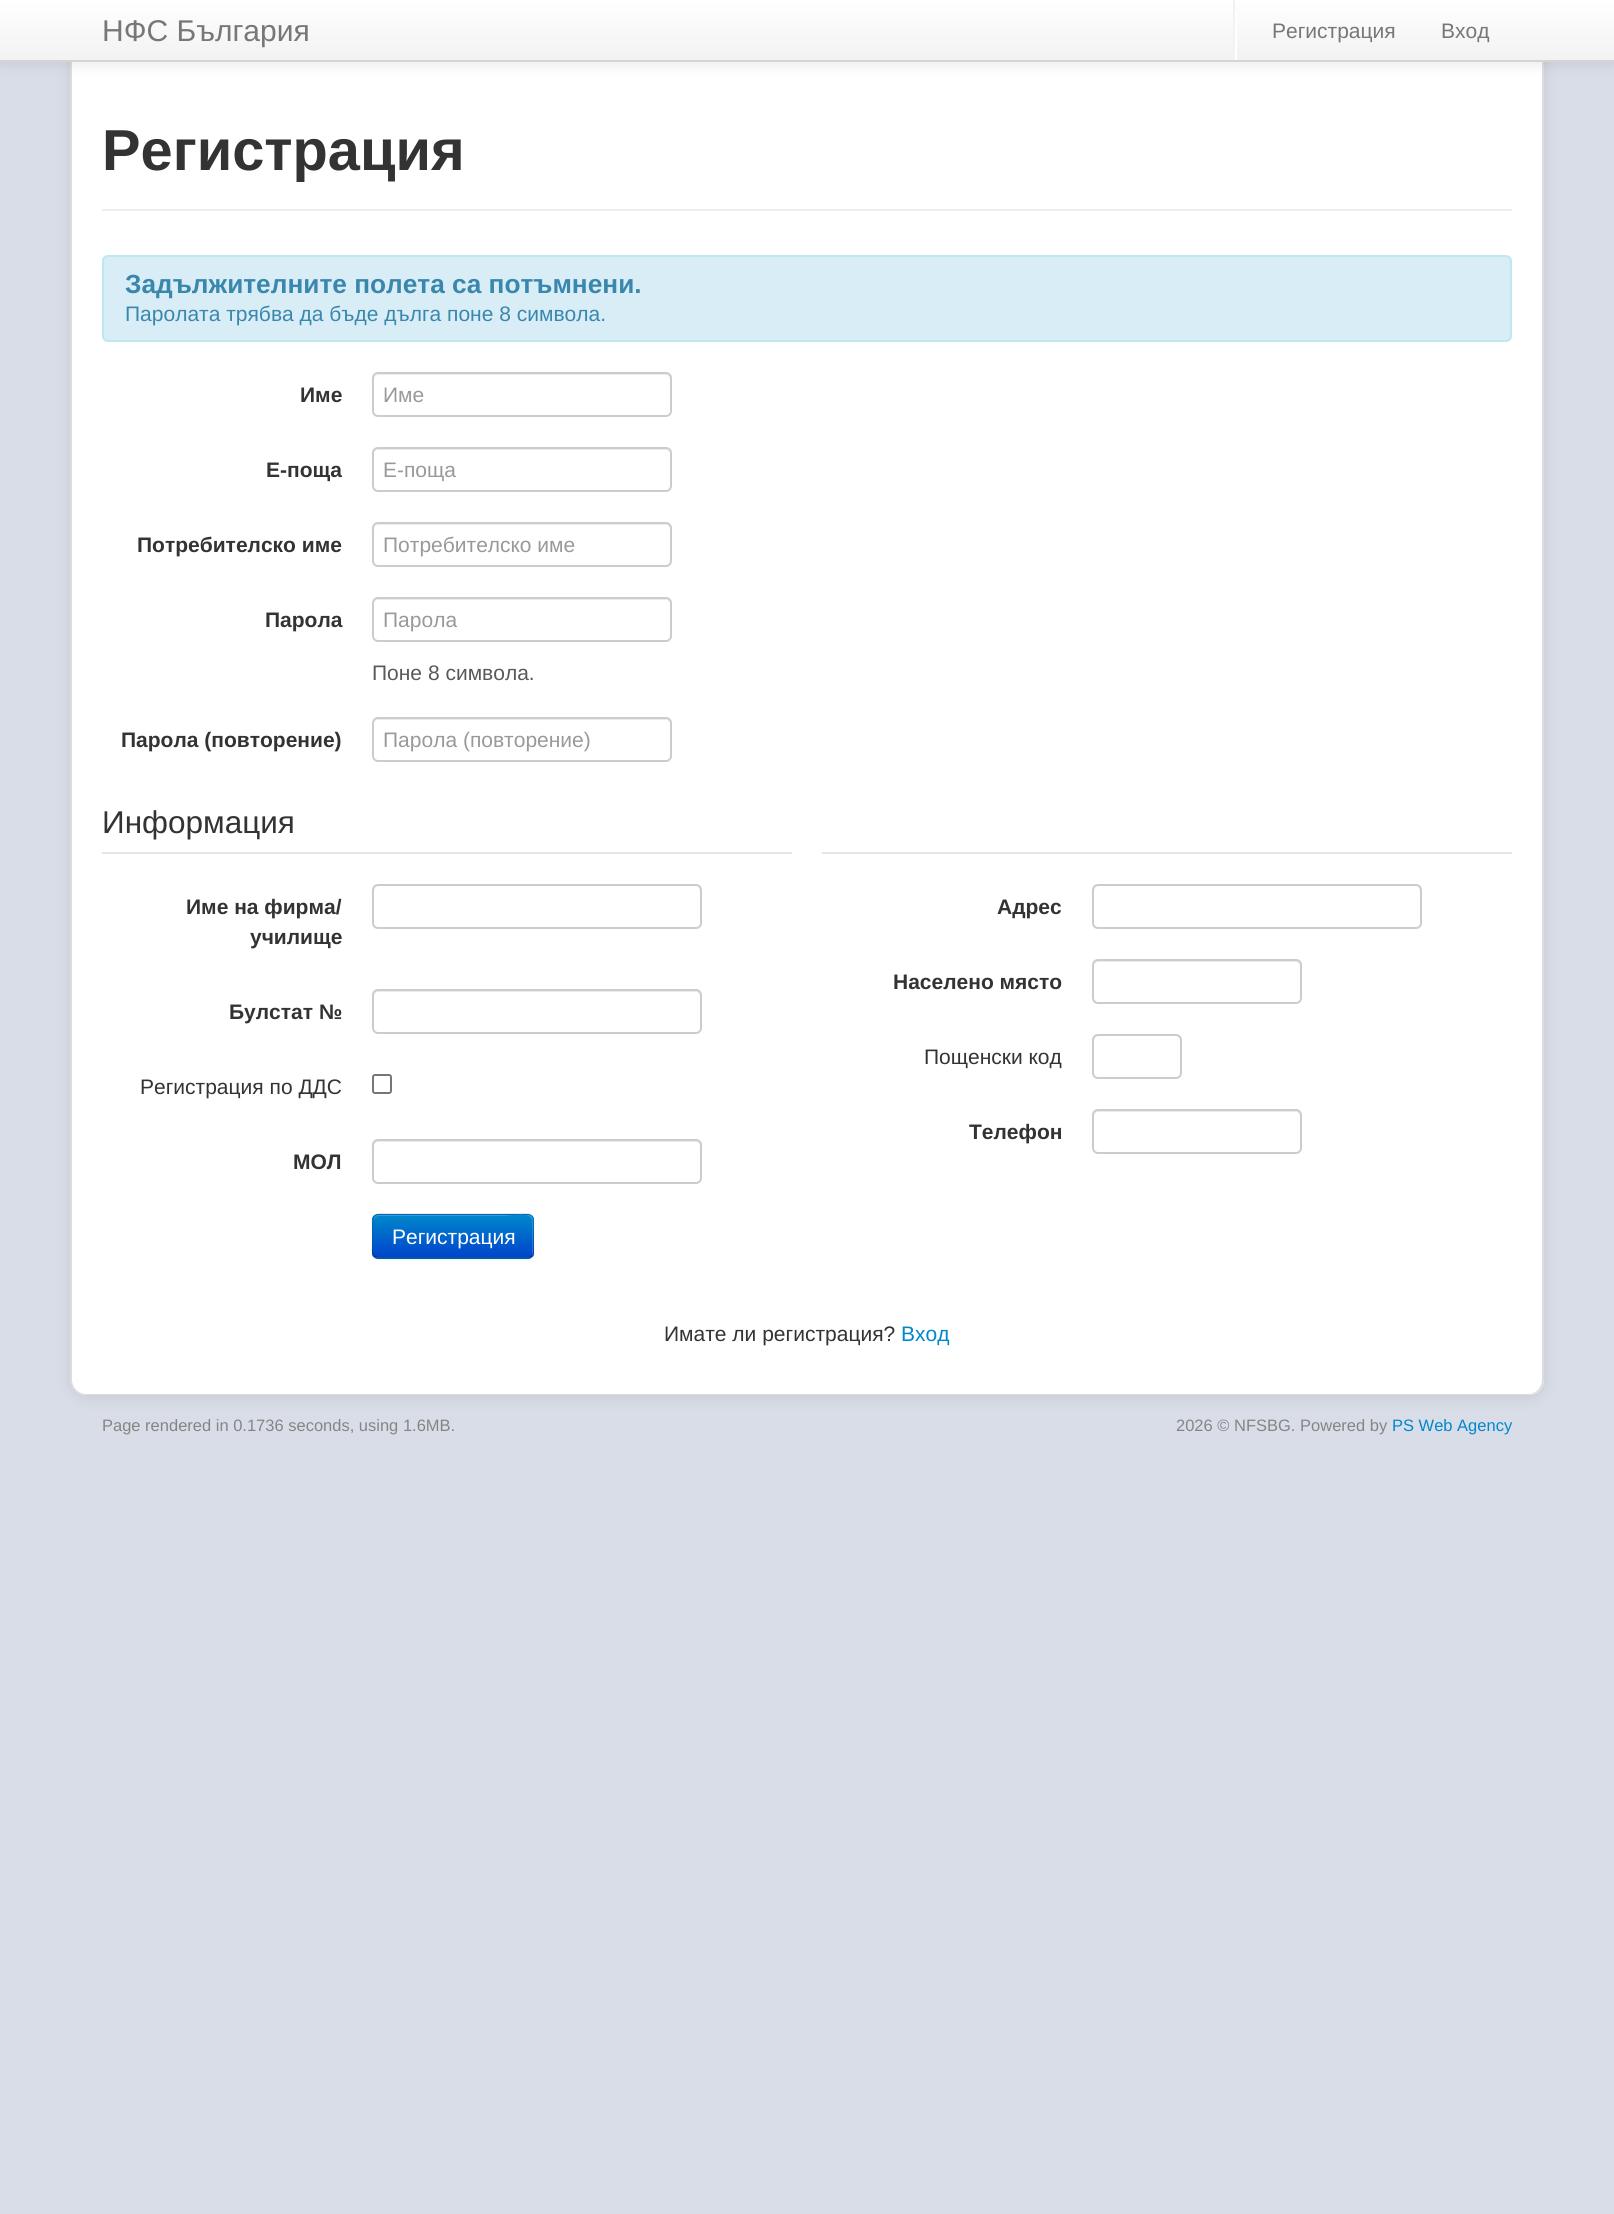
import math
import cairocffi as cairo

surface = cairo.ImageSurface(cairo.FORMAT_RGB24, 1614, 2214)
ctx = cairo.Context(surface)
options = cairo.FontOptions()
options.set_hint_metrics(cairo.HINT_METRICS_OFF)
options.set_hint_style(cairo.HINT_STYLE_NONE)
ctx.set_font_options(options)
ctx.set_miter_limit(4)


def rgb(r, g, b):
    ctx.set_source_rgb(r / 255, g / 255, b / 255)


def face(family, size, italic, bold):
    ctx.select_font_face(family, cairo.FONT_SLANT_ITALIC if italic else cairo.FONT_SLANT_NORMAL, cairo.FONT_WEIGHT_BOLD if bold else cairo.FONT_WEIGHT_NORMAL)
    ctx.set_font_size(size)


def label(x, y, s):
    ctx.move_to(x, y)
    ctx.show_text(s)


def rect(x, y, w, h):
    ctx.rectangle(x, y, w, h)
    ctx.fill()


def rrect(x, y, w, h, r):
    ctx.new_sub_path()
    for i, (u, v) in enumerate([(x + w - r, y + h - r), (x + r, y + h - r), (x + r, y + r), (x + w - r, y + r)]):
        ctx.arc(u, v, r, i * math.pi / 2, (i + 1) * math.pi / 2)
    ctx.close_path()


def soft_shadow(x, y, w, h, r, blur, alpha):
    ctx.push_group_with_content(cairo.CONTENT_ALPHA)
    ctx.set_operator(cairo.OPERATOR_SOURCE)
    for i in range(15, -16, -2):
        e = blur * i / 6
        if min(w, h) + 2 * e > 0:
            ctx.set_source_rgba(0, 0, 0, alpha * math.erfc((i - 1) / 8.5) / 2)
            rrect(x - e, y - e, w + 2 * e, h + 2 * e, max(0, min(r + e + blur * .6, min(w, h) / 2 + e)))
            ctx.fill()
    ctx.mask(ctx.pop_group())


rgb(217, 221, 232)
ctx.paint()
rgb(0, 0, 0)
soft_shadow(71, 2, 1473, 1395, 15, 7.5, 0.1)
rgb(255, 255, 255)
rrect(71, 0, 1473, 1395, 15)
ctx.fill()
rgb(221, 221, 221)
ctx.set_fill_rule(cairo.FILL_RULE_EVEN_ODD)
ctx.new_path()
ctx.move_to(86, 0)
ctx.line_to(1528, 0)
ctx.curve_to(1537, 0, 1544, 7, 1544, 15)
ctx.line_to(1544, 1380)
ctx.curve_to(1544, 1388, 1537, 1395, 1528, 1395)
ctx.line_to(86, 1395)
ctx.curve_to(77, 1395, 70, 1388, 70, 1380)
ctx.line_to(70, 15)
ctx.curve_to(70, 7, 77, 0, 86, 0)
ctx.close_path()
ctx.move_to(86, 0)
ctx.line_to(1528, 0)
ctx.curve_to(1536, 0, 1542, 7, 1542, 15)
ctx.line_to(1542, 1380)
ctx.curve_to(1542, 1387, 1536, 1394, 1528, 1394)
ctx.line_to(86, 1394)
ctx.curve_to(78, 1394, 72, 1387, 72, 1380)
ctx.line_to(72, 15)
ctx.curve_to(72, 7, 78, 0, 86, 0)
ctx.close_path()
ctx.fill()
rgb(0, 0, 0)
soft_shadow(0, 2, 1614, 61, 0, 7.5, 0.1)
gradient = cairo.LinearGradient(807, 0, 807, 60)
gradient.add_color_stop_rgba(0, 1, 1, 1, 1)
gradient.add_color_stop_rgba(1, 0.949, 0.949, 0.949, 1)
ctx.set_source(gradient)
rect(0, 0, 1614, 60)
rgb(212, 212, 212)
rect(0, 60, 1614, 2)
face('Liberation Sans', 30, 0, 0)
rgb(119, 119, 119)
label(102, 41, 'НФС България')
rgb(255, 255, 255)
rect(1235, 12, 2, 48)
rgb(242, 242, 242)
rect(1233, 0, 2, 48)
face('Liberation Sans', 21, 0, 0)
rgb(119, 119, 119)
label(1272, 38, 'Регистрация')
label(1441, 38, 'Вход')
rgb(238, 238, 238)
rect(102, 209, 1410, 2)
face('Liberation Sans', 57.75, 0, 1)
rgb(51, 51, 51)
label(102, 170, 'Регистрация')
rgb(217, 237, 247)
rrect(103, 256, 1408, 85, 5)
ctx.fill_preserve()
rgb(188, 232, 241)
ctx.stroke()
face('Liberation Sans', 26.25, 0, 1)
rgb(58, 135, 173)
label(125, 293, 'Задължителните полета са потъмнени.')
face('Liberation Sans', 21, 0, 0)
label(125, 321, 'Паролата трябва да бъде дълга поне 8 символа.')
face('Liberation Sans', 21, 0, 1)
rgb(51, 51, 51)
label(300, 402, 'Име')
rgb(236, 236, 236)
ctx.set_fill_rule(cairo.FILL_RULE_WINDING)
ctx.new_path()
ctx.move_to(378, 375)
ctx.line_to(666, 375)
ctx.curve_to(668, 375, 670, 377, 670, 380)
ctx.line_to(670, 412)
ctx.line_to(669, 415)
ctx.curve_to(670, 414, 671, 412, 671, 411)
ctx.line_to(671, 379)
ctx.curve_to(671, 376, 669, 374, 666, 374)
ctx.line_to(379, 374)
ctx.curve_to(376, 374, 374, 376, 374, 379)
ctx.line_to(374, 380)
ctx.curve_to(374, 377, 376, 375, 378, 375)
ctx.close_path()
ctx.fill()
rrect(373, 373, 298, 43, 5)
rgb(204, 204, 204)
ctx.stroke()
face('Liberation Sans', 21, 0, 0)
rgb(153, 153, 153)
label(383, 402, 'Име')
face('Liberation Sans', 21, 0, 1)
rgb(51, 51, 51)
label(266, 477, 'Е-поща')
rgb(236, 236, 236)
ctx.new_path()
ctx.move_to(378, 450)
ctx.line_to(666, 450)
ctx.curve_to(668, 450, 670, 452, 670, 454)
ctx.line_to(670, 489)
ctx.curve_to(671, 488, 671, 487, 671, 486)
ctx.line_to(671, 454)
ctx.curve_to(671, 451, 669, 449, 666, 449)
ctx.line_to(379, 449)
ctx.curve_to(376, 449, 374, 451, 374, 454)
ctx.curve_to(374, 452, 376, 450, 378, 450)
ctx.close_path()
ctx.fill()
rrect(373, 448, 298, 43, 5)
rgb(204, 204, 204)
ctx.stroke()
face('Liberation Sans', 21, 0, 0)
rgb(153, 153, 153)
label(383, 477, 'Е-поща')
face('Liberation Sans', 21, 0, 1)
rgb(51, 51, 51)
label(137, 552, 'Потребителско име')
rgb(236, 236, 236)
ctx.new_path()
ctx.move_to(378, 525)
ctx.line_to(666, 525)
ctx.curve_to(668, 525, 670, 527, 670, 530)
ctx.line_to(670, 562)
ctx.line_to(669, 565)
ctx.curve_to(670, 564, 671, 562, 671, 561)
ctx.line_to(671, 529)
ctx.curve_to(671, 526, 669, 524, 666, 524)
ctx.line_to(379, 524)
ctx.curve_to(376, 524, 374, 526, 374, 529)
ctx.line_to(374, 530)
ctx.curve_to(374, 527, 376, 525, 378, 525)
ctx.close_path()
ctx.fill()
rrect(373, 523, 298, 43, 5)
rgb(204, 204, 204)
ctx.stroke()
face('Liberation Sans', 21, 0, 0)
rgb(153, 153, 153)
label(383, 552, 'Потребителско име')
face('Liberation Sans', 21, 0, 1)
rgb(51, 51, 51)
label(265, 627, 'Парола')
rgb(236, 236, 236)
ctx.new_path()
ctx.move_to(378, 600)
ctx.line_to(666, 600)
ctx.curve_to(668, 600, 670, 602, 670, 604)
ctx.line_to(670, 639)
ctx.curve_to(671, 638, 671, 637, 671, 636)
ctx.line_to(671, 604)
ctx.curve_to(671, 601, 669, 599, 666, 599)
ctx.line_to(379, 599)
ctx.curve_to(376, 599, 374, 601, 374, 604)
ctx.curve_to(374, 602, 376, 600, 378, 600)
ctx.close_path()
ctx.fill()
rrect(373, 598, 298, 43, 5)
rgb(204, 204, 204)
ctx.stroke()
face('Liberation Sans', 21, 0, 0)
rgb(153, 153, 153)
label(383, 627, 'Парола')
rgb(89, 89, 89)
label(372, 680, 'Поне 8 символа.')
face('Liberation Sans', 21, 0, 1)
rgb(51, 51, 51)
label(121, 747, 'Парола (повторение)')
rgb(236, 236, 236)
ctx.new_path()
ctx.move_to(378, 720)
ctx.line_to(666, 720)
ctx.curve_to(668, 720, 670, 722, 670, 724)
ctx.line_to(670, 759)
ctx.curve_to(671, 758, 671, 757, 671, 756)
ctx.line_to(671, 724)
ctx.curve_to(671, 721, 669, 719, 666, 719)
ctx.line_to(379, 719)
ctx.curve_to(376, 719, 374, 721, 374, 724)
ctx.curve_to(374, 722, 376, 720, 378, 720)
ctx.close_path()
ctx.fill()
rrect(373, 718, 298, 43, 5)
rgb(204, 204, 204)
ctx.stroke()
face('Liberation Sans', 21, 0, 0)
rgb(153, 153, 153)
label(383, 747, 'Парола (повторение)')
rgb(229, 229, 229)
rect(102, 852, 690, 2)
face('Liberation Sans', 31.5, 0, 0)
rgb(51, 51, 51)
label(102, 833, 'Информация')
face('Liberation Sans', 21, 0, 1)
label(186, 914, 'Име на фирма/')
label(250, 944, 'училище')
rgb(236, 236, 236)
ctx.new_path()
ctx.move_to(378, 886)
ctx.line_to(696, 886)
ctx.curve_to(702, 886, 700, 900, 700, 902)
ctx.line_to(700, 925)
ctx.curve_to(701, 924, 701, 923, 701, 922)
ctx.line_to(701, 890)
ctx.curve_to(701, 887, 699, 885, 696, 885)
ctx.line_to(379, 885)
ctx.curve_to(376, 885, 374, 887, 374, 890)
ctx.line_to(374, 891)
ctx.curve_to(374, 889, 376, 886, 378, 886)
ctx.close_path()
ctx.fill()
rrect(373, 885, 328, 43, 5)
rgb(204, 204, 204)
ctx.stroke()
rgb(51, 51, 51)
label(229, 1019, 'Булстат №')
rgb(236, 236, 236)
ctx.new_path()
ctx.move_to(378, 992)
ctx.line_to(696, 992)
ctx.curve_to(698, 992, 700, 994, 700, 996)
ctx.line_to(700, 1030)
ctx.curve_to(701, 1029, 701, 1028, 701, 1027)
ctx.line_to(701, 995)
ctx.curve_to(701, 992, 699, 990, 696, 990)
ctx.line_to(379, 990)
ctx.curve_to(376, 990, 374, 992, 374, 995)
ctx.line_to(374, 996)
ctx.curve_to(374, 994, 376, 992, 378, 992)
ctx.close_path()
ctx.fill()
rrect(373, 990, 328, 43, 5)
rgb(204, 204, 204)
ctx.stroke()
face('Liberation Sans', 21, 0, 0)
rgb(51, 51, 51)
label(140, 1094, 'Регистрация по ДДС')
rrect(373, 1075, 18, 18, 2)
rgb(118, 118, 118)
ctx.stroke()
face('Liberation Sans', 21, 0, 1)
rgb(51, 51, 51)
label(293, 1169, 'МОЛ')
rgb(236, 236, 236)
ctx.new_path()
ctx.move_to(378, 1142)
ctx.line_to(696, 1142)
ctx.curve_to(698, 1142, 700, 1144, 700, 1146)
ctx.line_to(700, 1180)
ctx.curve_to(701, 1179, 701, 1178, 701, 1177)
ctx.line_to(701, 1145)
ctx.curve_to(701, 1142, 699, 1140, 696, 1140)
ctx.line_to(379, 1140)
ctx.curve_to(376, 1140, 374, 1142, 374, 1145)
ctx.line_to(374, 1146)
ctx.curve_to(374, 1144, 376, 1142, 378, 1142)
ctx.close_path()
ctx.fill()
rrect(373, 1140, 328, 43, 5)
rgb(204, 204, 204)
ctx.stroke()
rgb(229, 229, 229)
rect(822, 852, 690, 2)
rgb(51, 51, 51)
label(997, 914, 'Адрес')
rgb(236, 236, 236)
ctx.new_path()
ctx.move_to(1098, 886)
ctx.line_to(1416, 886)
ctx.curve_to(1422, 886, 1420, 900, 1420, 902)
ctx.line_to(1420, 925)
ctx.curve_to(1421, 924, 1421, 923, 1421, 922)
ctx.line_to(1421, 890)
ctx.curve_to(1421, 887, 1419, 885, 1416, 885)
ctx.line_to(1099, 885)
ctx.curve_to(1096, 885, 1094, 887, 1094, 890)
ctx.line_to(1094, 891)
ctx.curve_to(1094, 889, 1096, 886, 1098, 886)
ctx.close_path()
ctx.fill()
rrect(1093, 885, 328, 43, 5)
rgb(204, 204, 204)
ctx.stroke()
rgb(51, 51, 51)
label(893, 989, 'Населено място')
rgb(236, 236, 236)
ctx.new_path()
ctx.move_to(1098, 962)
ctx.line_to(1296, 962)
ctx.curve_to(1298, 962, 1300, 964, 1300, 966)
ctx.line_to(1300, 1000)
ctx.curve_to(1301, 999, 1301, 998, 1301, 997)
ctx.line_to(1301, 965)
ctx.curve_to(1301, 962, 1299, 960, 1296, 960)
ctx.line_to(1099, 960)
ctx.curve_to(1096, 960, 1094, 962, 1094, 965)
ctx.line_to(1094, 966)
ctx.curve_to(1094, 964, 1096, 962, 1098, 962)
ctx.close_path()
ctx.fill()
rrect(1093, 960, 208, 43, 5)
rgb(204, 204, 204)
ctx.stroke()
face('Liberation Sans', 21, 0, 0)
rgb(51, 51, 51)
label(924, 1064, 'Пощенски код')
rgb(236, 236, 236)
ctx.new_path()
ctx.move_to(1098, 1036)
ctx.line_to(1176, 1036)
ctx.curve_to(1182, 1036, 1180, 1050, 1180, 1052)
ctx.line_to(1180, 1075)
ctx.curve_to(1181, 1074, 1181, 1073, 1181, 1072)
ctx.line_to(1181, 1040)
ctx.curve_to(1181, 1037, 1179, 1035, 1176, 1035)
ctx.line_to(1099, 1035)
ctx.curve_to(1096, 1035, 1094, 1037, 1094, 1040)
ctx.line_to(1094, 1041)
ctx.curve_to(1094, 1039, 1096, 1036, 1098, 1036)
ctx.close_path()
ctx.fill()
rrect(1093, 1035, 88, 43, 5)
rgb(204, 204, 204)
ctx.stroke()
face('Liberation Sans', 21, 0, 1)
rgb(51, 51, 51)
label(969, 1139, 'Телефон')
rgb(236, 236, 236)
ctx.new_path()
ctx.move_to(1098, 1112)
ctx.line_to(1296, 1112)
ctx.curve_to(1298, 1112, 1300, 1114, 1300, 1116)
ctx.line_to(1300, 1150)
ctx.curve_to(1301, 1149, 1301, 1148, 1301, 1147)
ctx.line_to(1301, 1115)
ctx.curve_to(1301, 1112, 1299, 1110, 1296, 1110)
ctx.line_to(1099, 1110)
ctx.curve_to(1096, 1110, 1094, 1112, 1094, 1115)
ctx.line_to(1094, 1116)
ctx.curve_to(1094, 1114, 1096, 1112, 1098, 1112)
ctx.close_path()
ctx.fill()
rrect(1093, 1110, 208, 43, 5)
rgb(204, 204, 204)
ctx.stroke()
rgb(0, 0, 0)
soft_shadow(372, 1215, 162, 45, 6, 1.5, 0.05)
rgb(0, 109, 204)
rrect(372, 1214, 162, 45, 6)
ctx.fill()
ctx.save()
rrect(372, 1214, 162, 45, 6)
ctx.clip()
gradient = cairo.LinearGradient(453, 1215, 453, 1257)
gradient.add_color_stop_rgba(0, 0, 0.533, 0.8, 1)
gradient.add_color_stop_rgba(1, 0, 0.267, 0.8, 1)
ctx.set_source(gradient)
rect(372, 1215, 162, 42)
ctx.restore()
ctx.set_source_rgba(1, 1, 1, 0.2)
ctx.new_path()
ctx.move_to(378, 1216)
ctx.line_to(503, 1216)
ctx.curve_to(511, 1216, 530, 1211, 532, 1220)
ctx.line_to(532, 1255)
ctx.curve_to(533, 1254, 533, 1253, 533, 1252)
ctx.line_to(533, 1220)
ctx.curve_to(533, 1217, 531, 1215, 528, 1215)
ctx.line_to(379, 1215)
ctx.curve_to(376, 1215, 374, 1217, 374, 1220)
ctx.line_to(374, 1221)
ctx.curve_to(374, 1219, 376, 1216, 378, 1216)
ctx.close_path()
ctx.fill()
ctx.new_path()
ctx.move_to(531.5, 1256)
ctx.curve_to(530.5, 1257, 529.5, 1258, 528, 1258)
ctx.line_to(378, 1258)
ctx.curve_to(376.5, 1258, 375.5, 1257, 374.5, 1256)
ctx.set_source_rgba(0, 0, 0, 0.25)
ctx.set_line_width(1.5)
ctx.stroke()
ctx.new_path()
ctx.move_to(374.5, 1256)
ctx.curve_to(371, 1253, 373, 1245, 373, 1241.5)
ctx.curve_to(373, 1208.5, 367.5, 1214, 403, 1214)
ctx.line_to(503, 1214)
ctx.curve_to(538.5, 1214, 533, 1208.5, 533, 1241.5)
ctx.curve_to(533, 1245, 535, 1253, 531.5, 1256)
ctx.set_source_rgba(0, 0, 0, 0.1)
ctx.stroke()
face('Liberation Sans', 21, 0, 0)
rgb(255, 255, 255)
label(392, 1244, 'Регистрация')
rgb(51, 51, 51)
label(664, 1341, 'Имате ли регистрация?')
rgb(0, 136, 204)
label(901, 1341, 'Вход')
face('Liberation Sans', 16.5, 0, 0)
rgb(133, 133, 133)
label(102, 1431, 'Page rendered in 0.1736 seconds, using 1.6MB.')
label(1176, 1431, '2026 © NFSBG. Powered by')
rgb(0, 136, 204)
label(1392, 1431, 'PS Web Agency')
surface.write_to_png('render.png')
